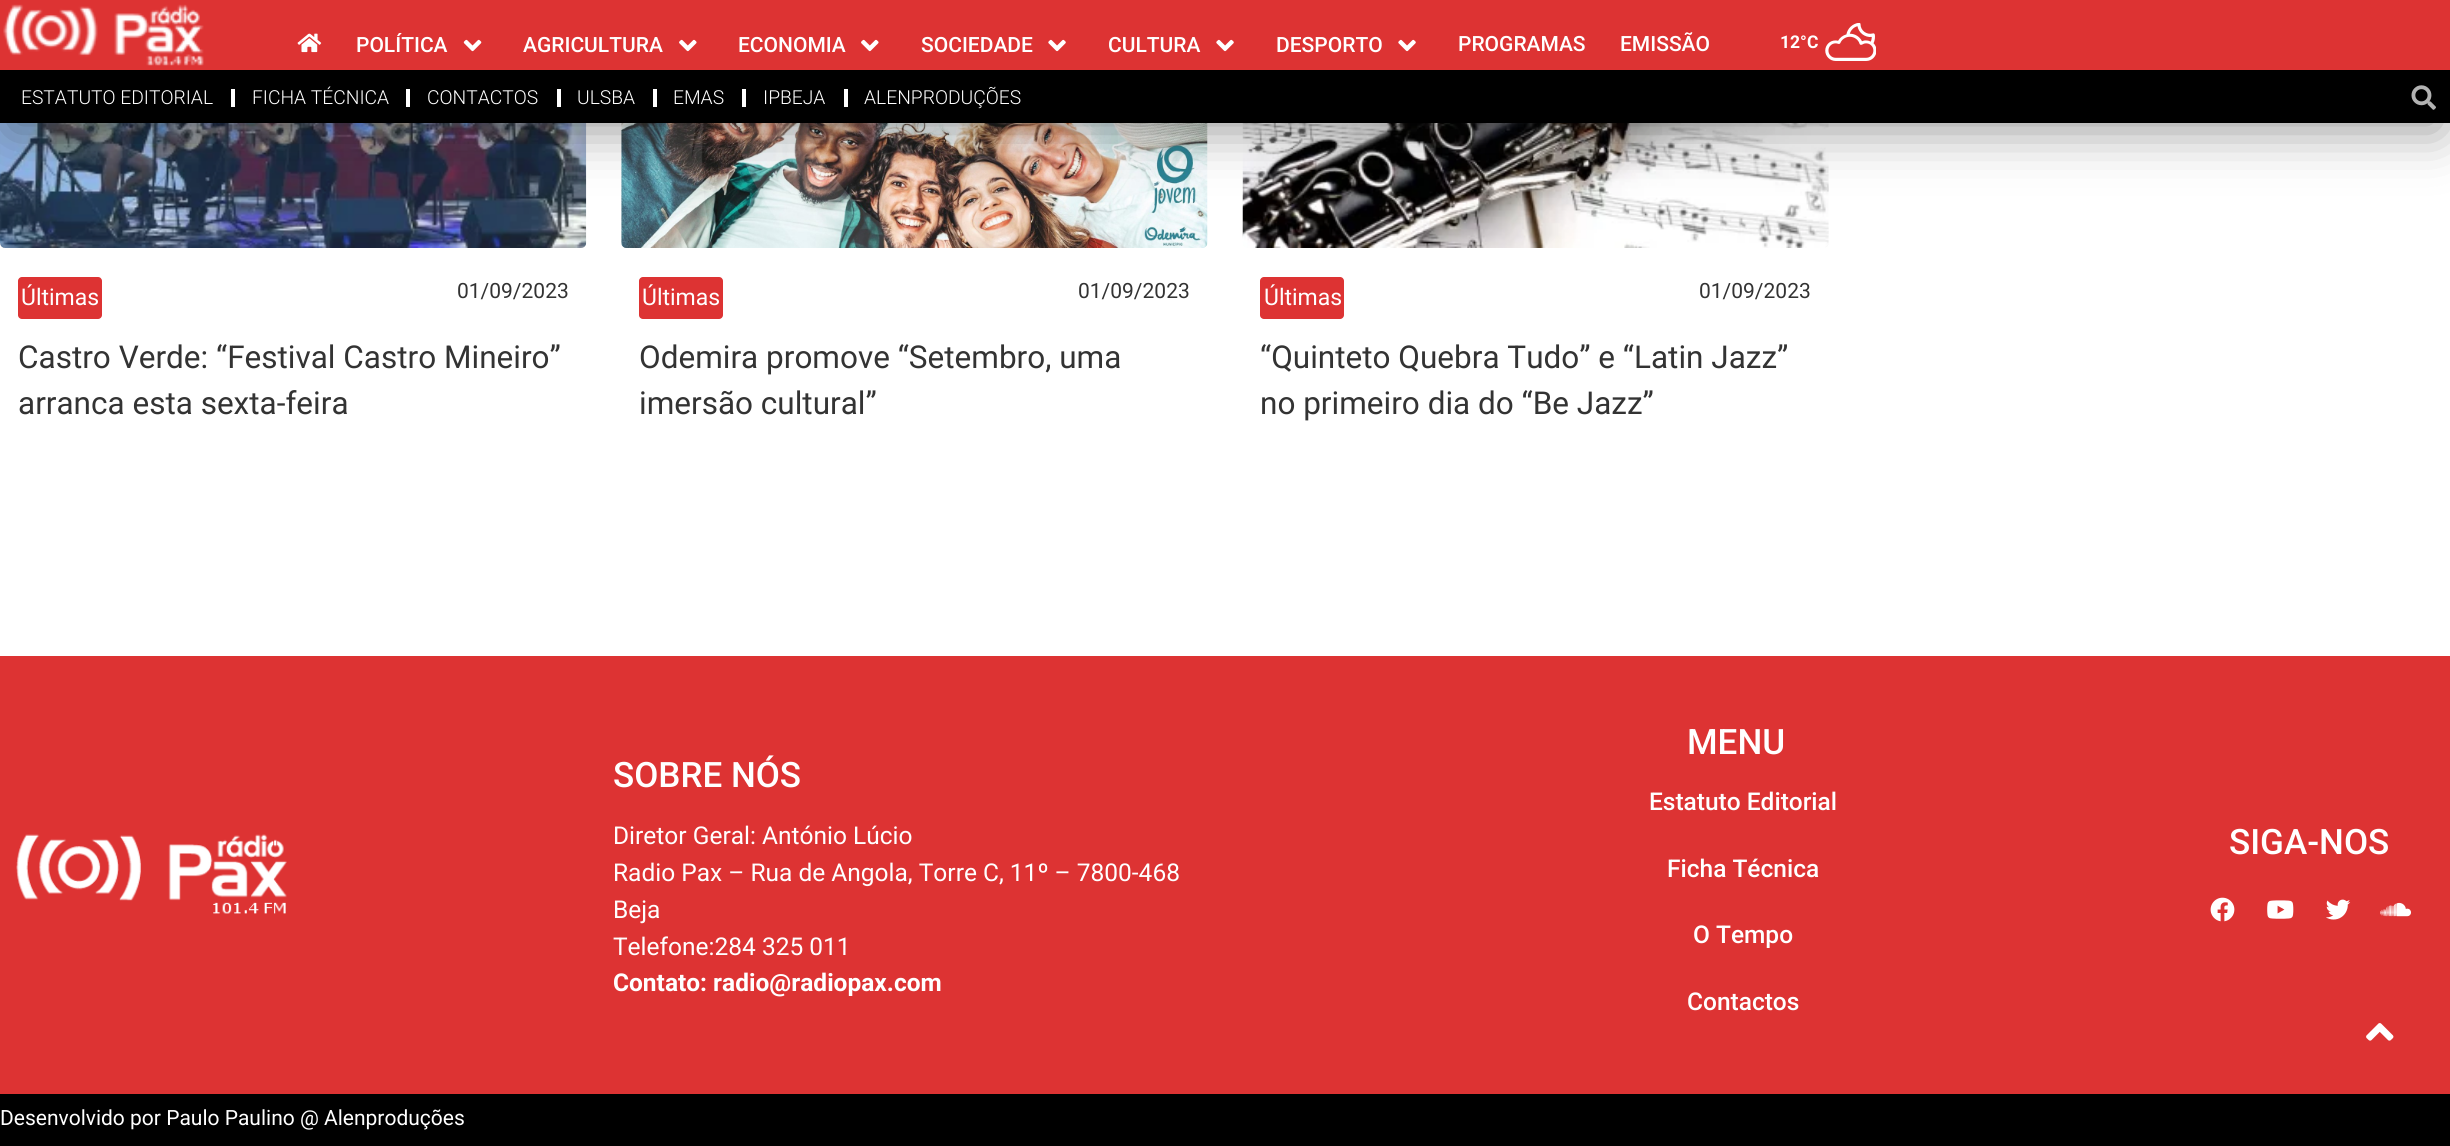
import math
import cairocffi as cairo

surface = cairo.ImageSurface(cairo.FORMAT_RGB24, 2450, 1146)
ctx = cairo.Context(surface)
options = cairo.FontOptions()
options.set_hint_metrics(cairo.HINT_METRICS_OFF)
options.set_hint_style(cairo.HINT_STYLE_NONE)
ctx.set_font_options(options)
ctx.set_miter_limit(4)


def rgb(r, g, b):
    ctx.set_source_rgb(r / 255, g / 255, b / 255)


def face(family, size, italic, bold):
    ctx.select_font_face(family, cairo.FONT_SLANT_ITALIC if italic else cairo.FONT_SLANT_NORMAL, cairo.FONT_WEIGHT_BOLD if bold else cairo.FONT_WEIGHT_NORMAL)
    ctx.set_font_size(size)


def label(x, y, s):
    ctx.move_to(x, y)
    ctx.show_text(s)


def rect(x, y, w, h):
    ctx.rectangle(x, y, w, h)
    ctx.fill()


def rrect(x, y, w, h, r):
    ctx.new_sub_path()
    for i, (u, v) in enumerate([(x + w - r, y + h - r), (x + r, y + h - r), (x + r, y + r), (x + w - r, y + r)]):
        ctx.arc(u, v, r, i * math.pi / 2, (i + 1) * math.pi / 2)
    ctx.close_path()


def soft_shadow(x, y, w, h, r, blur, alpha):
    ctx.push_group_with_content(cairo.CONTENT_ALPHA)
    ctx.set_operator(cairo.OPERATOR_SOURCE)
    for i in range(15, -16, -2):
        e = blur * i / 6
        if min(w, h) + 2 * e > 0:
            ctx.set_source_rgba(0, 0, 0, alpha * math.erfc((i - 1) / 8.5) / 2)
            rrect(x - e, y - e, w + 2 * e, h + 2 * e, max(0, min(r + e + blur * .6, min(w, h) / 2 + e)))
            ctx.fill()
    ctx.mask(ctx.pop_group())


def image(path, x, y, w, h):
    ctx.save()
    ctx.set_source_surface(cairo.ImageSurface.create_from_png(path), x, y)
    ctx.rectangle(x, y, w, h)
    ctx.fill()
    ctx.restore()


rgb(255, 255, 255)
ctx.paint()
image('image7.png', 0, 123, 587, 125)
image('image8.png', 621, 123, 587, 125)
image('image9.png', 1242, 123, 587, 125)
rgb(7, 7, 7)
soft_shadow(9, 93, 2432, 38, 0, 26, 0.41)
rgb(221, 51, 51)
rect(0, 0, 2450, 70)
image('image0.png', 3, 4, 201, 62)
image('image1.png', 297, 33, 25, 20)
face('Roboto Medium', 21, 0, 0)
rgb(255, 255, 255)
label(356, 52, 'POLÍTICA')
image('image2.png', 463, 39, 19, 13)
label(523, 52, 'AGRICULTURA')
image('image3.png', 679, 39, 18, 13)
label(738, 52, 'ECONOMIA')
image('image3.png', 861, 39, 18, 13)
label(921, 52, 'SOCIEDADE')
image('image4.png', 1048, 39, 18, 13)
label(1108, 52, 'CULTURA')
image('image4.png', 1216, 39, 18, 13)
label(1276, 52, 'DESPORTO')
image('image4.png', 1398, 39, 18, 13)
label(1458, 51, 'PROGRAMAS')
label(1620, 51, 'EMISSÃO')
face('Roboto', 17.5, 0, 1)
label(1780, 48, '12°C')
image('image5.png', 1825, 23, 51, 38)
rgb(0, 0, 0)
rect(0, 70, 2450, 53)
face('Roboto Light', 19.25, 0, 0)
rgb(255, 255, 255)
label(21, 104, 'ESTATUTO EDITORIAL')
rect(231, 89, 4, 18)
label(252, 104, 'FICHA TÉCNICA')
rect(406, 89, 4, 18)
label(427, 104, 'CONTACTOS')
rect(557, 89, 4, 18)
label(577, 104, 'ULSBA')
rect(653, 89, 4, 18)
label(673, 104, 'EMAS')
rect(742, 89, 4, 18)
label(763, 104, 'IPBEJA')
rect(844, 89, 4, 18)
label(864, 104, 'ALENPRODUÇÕES')
image('image6.png', 2411, 85, 25, 25)
rgb(221, 51, 51)
rrect(18, 277, 84, 42, 4)
ctx.fill()
face('Roboto', 23, 0, 0)
rgb(255, 255, 255)
label(21, 305, 'Últimas')
face('Roboto', 21, 0, 0)
rgb(51, 51, 51)
label(457, 298, '01/09/2023')
face('Roboto', 31.5, 0, 0)
label(18, 368, 'Castro Verde: “Festival Castro Mineiro”')
label(18, 414, 'arranca esta sexta-feira')
rgb(221, 51, 51)
rrect(639, 277, 84, 42, 4)
ctx.fill()
face('Roboto', 23, 0, 0)
rgb(255, 255, 255)
label(642, 305, 'Últimas')
face('Roboto', 21, 0, 0)
rgb(51, 51, 51)
label(1078, 298, '01/09/2023')
face('Roboto', 31.5, 0, 0)
label(639, 368, 'Odemira promove “Setembro, uma')
label(639, 414, 'imersão cultural”')
rgb(221, 51, 51)
rrect(1260, 277, 84, 42, 4)
ctx.fill()
face('Roboto', 23, 0, 0)
rgb(255, 255, 255)
label(1264, 305, 'Últimas')
face('Roboto', 21, 0, 0)
rgb(51, 51, 51)
label(1699, 298, '01/09/2023')
face('Roboto', 31.5, 0, 0)
label(1260, 368, '“Quinteto Quebra Tudo” e “Latin Jazz”')
label(1260, 414, 'no primeiro dia do “Be Jazz”')
rgb(221, 51, 51)
rect(0, 656, 2450, 438)
image('image10.png', 16, 834, 271, 80)
face('Roboto Medium', 35, 0, 0)
rgb(255, 255, 255)
label(613, 787, 'SOBRE NÓS')
face('Roboto', 24.5, 0, 0)
label(613, 844, 'Diretor Geral: António Lúcio')
label(613, 881, 'Radio Pax – Rua de Angola, Torre C, 11º – 7800-468')
label(613, 918, 'Beja')
label(613, 955, 'Telefone:284 325 011')
face('Roboto', 24.5, 0, 1)
label(613, 991, 'Contato: radio@radiopax.com')
face('Roboto Medium', 35, 0, 0)
label(1687, 754, 'MENU')
face('Roboto Medium', 24.5, 0, 0)
label(1649, 810, 'Estatuto Editorial')
label(1667, 877, 'Ficha Técnica')
label(1693, 943, 'O Tempo')
label(1687, 1010, 'Contactos')
face('Roboto Medium', 35, 0, 0)
label(2229, 854, 'SIGA-NOS')
image('image11.png', 2210, 897, 25, 25)
image('image12.png', 2267, 900, 27, 19)
image('image13.png', 2326, 899, 25, 21)
image('image14.png', 2380, 902, 31, 15)
image('image15.png', 2366, 1023, 28, 18)
rgb(0, 0, 0)
rect(0, 1094, 2450, 52)
face('Roboto', 21, 0, 0)
rgb(255, 255, 255)
label(0, 1125, 'Desenvolvido por Paulo Paulino @ Alenproduções')
surface.write_to_png('render.png')
